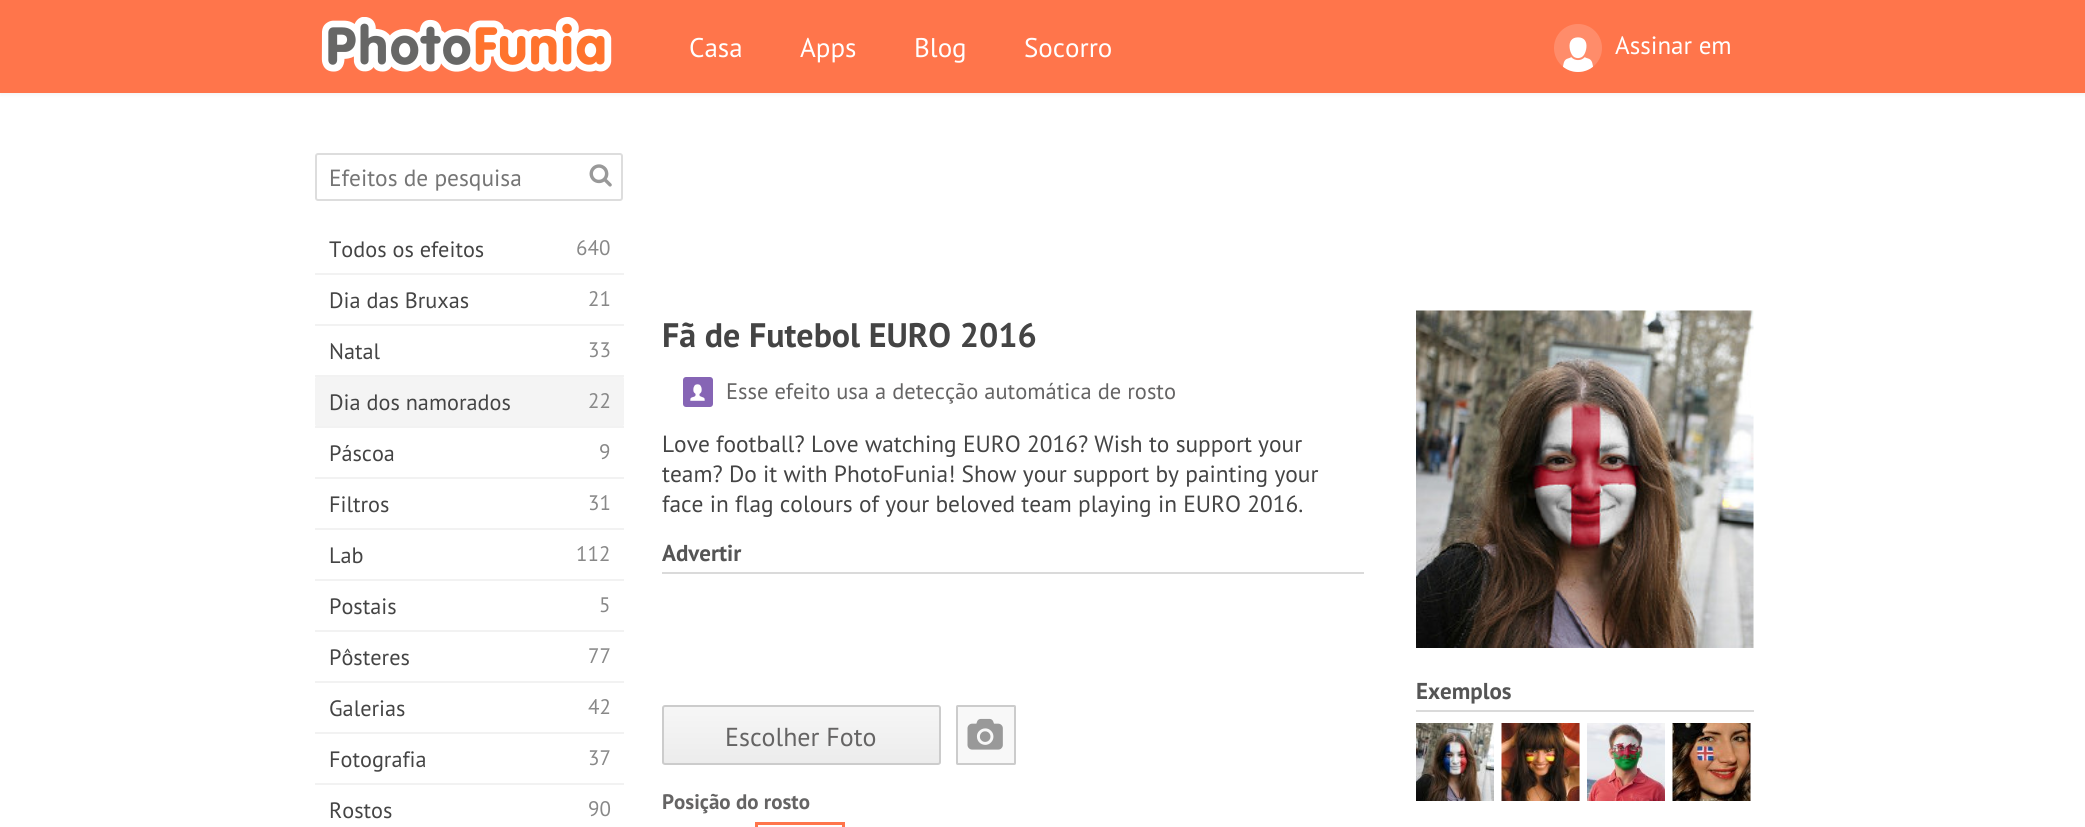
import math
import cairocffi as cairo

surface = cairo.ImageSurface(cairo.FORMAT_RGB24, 2085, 827)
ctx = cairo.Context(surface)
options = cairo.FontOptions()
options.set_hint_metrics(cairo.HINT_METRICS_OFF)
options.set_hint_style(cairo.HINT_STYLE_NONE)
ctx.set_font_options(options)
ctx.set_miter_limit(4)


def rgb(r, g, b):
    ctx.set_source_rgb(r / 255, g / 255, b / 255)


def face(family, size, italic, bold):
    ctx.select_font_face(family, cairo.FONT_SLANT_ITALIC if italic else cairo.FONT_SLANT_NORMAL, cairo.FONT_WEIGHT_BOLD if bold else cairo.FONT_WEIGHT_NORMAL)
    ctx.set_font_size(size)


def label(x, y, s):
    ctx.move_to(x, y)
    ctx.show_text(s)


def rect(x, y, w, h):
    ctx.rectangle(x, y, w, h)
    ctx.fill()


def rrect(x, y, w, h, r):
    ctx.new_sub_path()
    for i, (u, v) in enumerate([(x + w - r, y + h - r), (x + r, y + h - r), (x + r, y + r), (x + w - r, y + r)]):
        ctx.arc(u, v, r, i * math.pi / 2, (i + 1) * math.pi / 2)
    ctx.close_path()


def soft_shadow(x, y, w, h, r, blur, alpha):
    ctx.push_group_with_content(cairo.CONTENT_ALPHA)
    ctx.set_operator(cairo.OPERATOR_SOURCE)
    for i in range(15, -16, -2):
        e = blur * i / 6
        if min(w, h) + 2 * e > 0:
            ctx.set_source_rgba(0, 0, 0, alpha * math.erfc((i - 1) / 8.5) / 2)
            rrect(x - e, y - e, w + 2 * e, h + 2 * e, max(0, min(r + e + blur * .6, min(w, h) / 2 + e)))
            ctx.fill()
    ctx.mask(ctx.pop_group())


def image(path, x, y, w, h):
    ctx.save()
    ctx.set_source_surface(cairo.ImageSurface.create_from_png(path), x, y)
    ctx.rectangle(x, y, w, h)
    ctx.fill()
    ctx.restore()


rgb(255, 255, 255)
ctx.paint()
rgb(0, 0, 0)
soft_shadow(0, 0, 2085, 93, 0, 3, 0.08)
rgb(255, 117, 75)
rect(0, 0, 2085, 93)
image('image0.png', 321, 17, 291, 55)
face('PT Sans', 27, 0, 0)
rgb(255, 255, 255)
label(689, 57, 'Casa')
label(800, 57, 'Apps')
label(914, 57, 'Blog')
label(1024, 57, 'Socorro')
rgb(255, 140, 106)
ctx.new_path()
ctx.arc(1578, 48, 24, 0, 2 * math.pi)
ctx.fill()
image('image1.png', 1563, 37, 30, 35)
face('PT Sans', 25, 0, 0)
rgb(255, 255, 255)
label(1615, 54, 'Assinar em')
rrect(316, 154, 306, 46, 2)
rgb(221, 221, 221)
ctx.stroke()
face('PT Sans', 23.4, 0, 0)
rgb(117, 117, 117)
label(329, 186, 'Efeitos de pesquisa')
image('image2.png', 589, 164, 23, 23)
rgb(242, 242, 242)
rect(315, 273, 309, 2)
face('PT Sans', 22.25, 0, 0)
rgb(68, 68, 68)
label(329, 257, 'Todos os efeitos')
face('PT Sans', 21, 0, 0)
rgb(136, 136, 136)
label(576, 255, '640')
rgb(242, 242, 242)
rect(315, 324, 309, 2)
face('PT Sans', 22.25, 0, 0)
rgb(68, 68, 68)
label(329, 308, 'Dia das Bruxas')
face('PT Sans', 21, 0, 0)
rgb(136, 136, 136)
label(588, 306, '21')
rgb(242, 242, 242)
rect(315, 375, 309, 2)
face('PT Sans', 22.25, 0, 0)
rgb(68, 68, 68)
label(329, 359, 'Natal')
face('PT Sans', 21, 0, 0)
rgb(136, 136, 136)
label(588, 357, '33')
rgb(242, 242, 242)
rect(315, 426, 309, 2)
rgb(244, 244, 244)
rrect(315, 377, 309, 49, 1.5)
ctx.fill()
face('PT Sans', 22.25, 0, 0)
rgb(68, 68, 68)
label(329, 410, 'Dia dos namorados')
face('PT Sans', 21, 0, 0)
rgb(136, 136, 136)
label(588, 408, '22')
rgb(242, 242, 242)
rect(315, 477, 309, 2)
face('PT Sans', 22.25, 0, 0)
rgb(68, 68, 68)
label(329, 461, 'Páscoa')
face('PT Sans', 21, 0, 0)
rgb(136, 136, 136)
label(599, 459, '9')
rgb(242, 242, 242)
rect(315, 528, 309, 2)
face('PT Sans', 22.25, 0, 0)
rgb(68, 68, 68)
label(329, 512, 'Filtros')
face('PT Sans', 21, 0, 0)
rgb(136, 136, 136)
label(588, 510, '31')
rgb(242, 242, 242)
rect(315, 579, 309, 2)
face('PT Sans', 22.25, 0, 0)
rgb(68, 68, 68)
label(329, 563, 'Lab')
face('PT Sans', 21, 0, 0)
rgb(136, 136, 136)
label(576, 561, '112')
rgb(242, 242, 242)
rect(315, 630, 309, 2)
face('PT Sans', 22.25, 0, 0)
rgb(68, 68, 68)
label(329, 614, 'Postais')
face('PT Sans', 21, 0, 0)
rgb(136, 136, 136)
label(599, 612, '5')
rgb(242, 242, 242)
rect(315, 681, 309, 2)
face('PT Sans', 22.25, 0, 0)
rgb(68, 68, 68)
label(329, 665, 'Pôsteres')
face('PT Sans', 21, 0, 0)
rgb(136, 136, 136)
label(588, 663, '77')
rgb(242, 242, 242)
rect(315, 732, 309, 2)
face('PT Sans', 22.25, 0, 0)
rgb(68, 68, 68)
label(329, 716, 'Galerias')
face('PT Sans', 21, 0, 0)
rgb(136, 136, 136)
label(588, 714, '42')
rgb(242, 242, 242)
rect(315, 783, 309, 2)
face('PT Sans', 22.25, 0, 0)
rgb(68, 68, 68)
label(329, 767, 'Fotografia')
face('PT Sans', 21, 0, 0)
rgb(136, 136, 136)
label(588, 765, '37')
face('PT Sans', 22.25, 0, 0)
rgb(68, 68, 68)
label(329, 818, 'Rostos')
face('PT Sans', 21, 0, 0)
rgb(136, 136, 136)
label(588, 816, '90')
face('PT Sans', 34, 0, 1)
rgb(68, 68, 68)
label(662, 347, 'Fã de Futebol EURO 2016')
rgb(134, 101, 181)
rrect(683, 377, 30, 30, 3)
ctx.fill()
image('image3.png', 690, 384, 15, 17)
face('PT Sans', 22.5, 0, 0)
rgb(101, 100, 100)
label(726, 399, 'Esse efeito usa a detecção automática de rosto')
face('PT Sans', 23.4, 0, 0)
rgb(68, 68, 68)
label(662, 452, 'Love football? Love watching EURO 2016? Wish to support your')
label(662, 482, 'team? Do it with PhotoFunia! Show your support by painting your')
label(662, 512, 'face in flag colours of your beloved team playing in EURO 2016.')
rgb(218, 218, 218)
rect(662, 572, 702, 2)
face('PT Sans', 23, 0, 1)
rgb(85, 85, 85)
label(662, 561, 'Advertir')
ctx.save()
rrect(662, 705, 279, 60, 3)
ctx.clip()
gradient = cairo.LinearGradient(663, 764, 663, 707)
gradient.add_color_stop_rgba(0, 0.925, 0.925, 0.925, 1)
gradient.add_color_stop_rgba(1, 0.965, 0.965, 0.965, 1)
ctx.set_source(gradient)
rect(662, 707, 279, 57)
ctx.restore()
rrect(663, 706, 277, 58, 2)
rgb(204, 204, 204)
ctx.stroke()
face('PT Sans', 26, 0, 0)
rgb(101, 100, 100)
label(725, 746, 'Escolher Foto')
rgb(248, 248, 248)
rrect(957, 706, 58, 58, 0.5)
ctx.fill_preserve()
rgb(204, 204, 204)
ctx.stroke()
image('image4.png', 967, 718, 36, 32)
face('PT Sans', 21, 0, 1)
rgb(101, 100, 100)
label(662, 809, 'Posição do rosto')
ctx.rectangle(756.5, 823.5, 87, 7)
rgb(255, 117, 75)
ctx.set_line_width(3)
ctx.stroke()
image('image5.png', 1416, 310, 338, 338)
rgb(218, 218, 218)
rect(1416, 710, 338, 2)
face('PT Sans', 23, 0, 1)
rgb(85, 85, 85)
label(1416, 699, 'Exemplos')
image('image6.png', 1416, 723, 78, 78)
rgb(238, 238, 238)
rect(1579, 723, 1, 78)
image('image7.png', 1501, 723, 79, 78)
image('image8.png', 1587, 723, 78, 78)
rect(1750, 723, 1, 78)
image('image9.png', 1672, 723, 79, 78)
surface.write_to_png('render.png')
